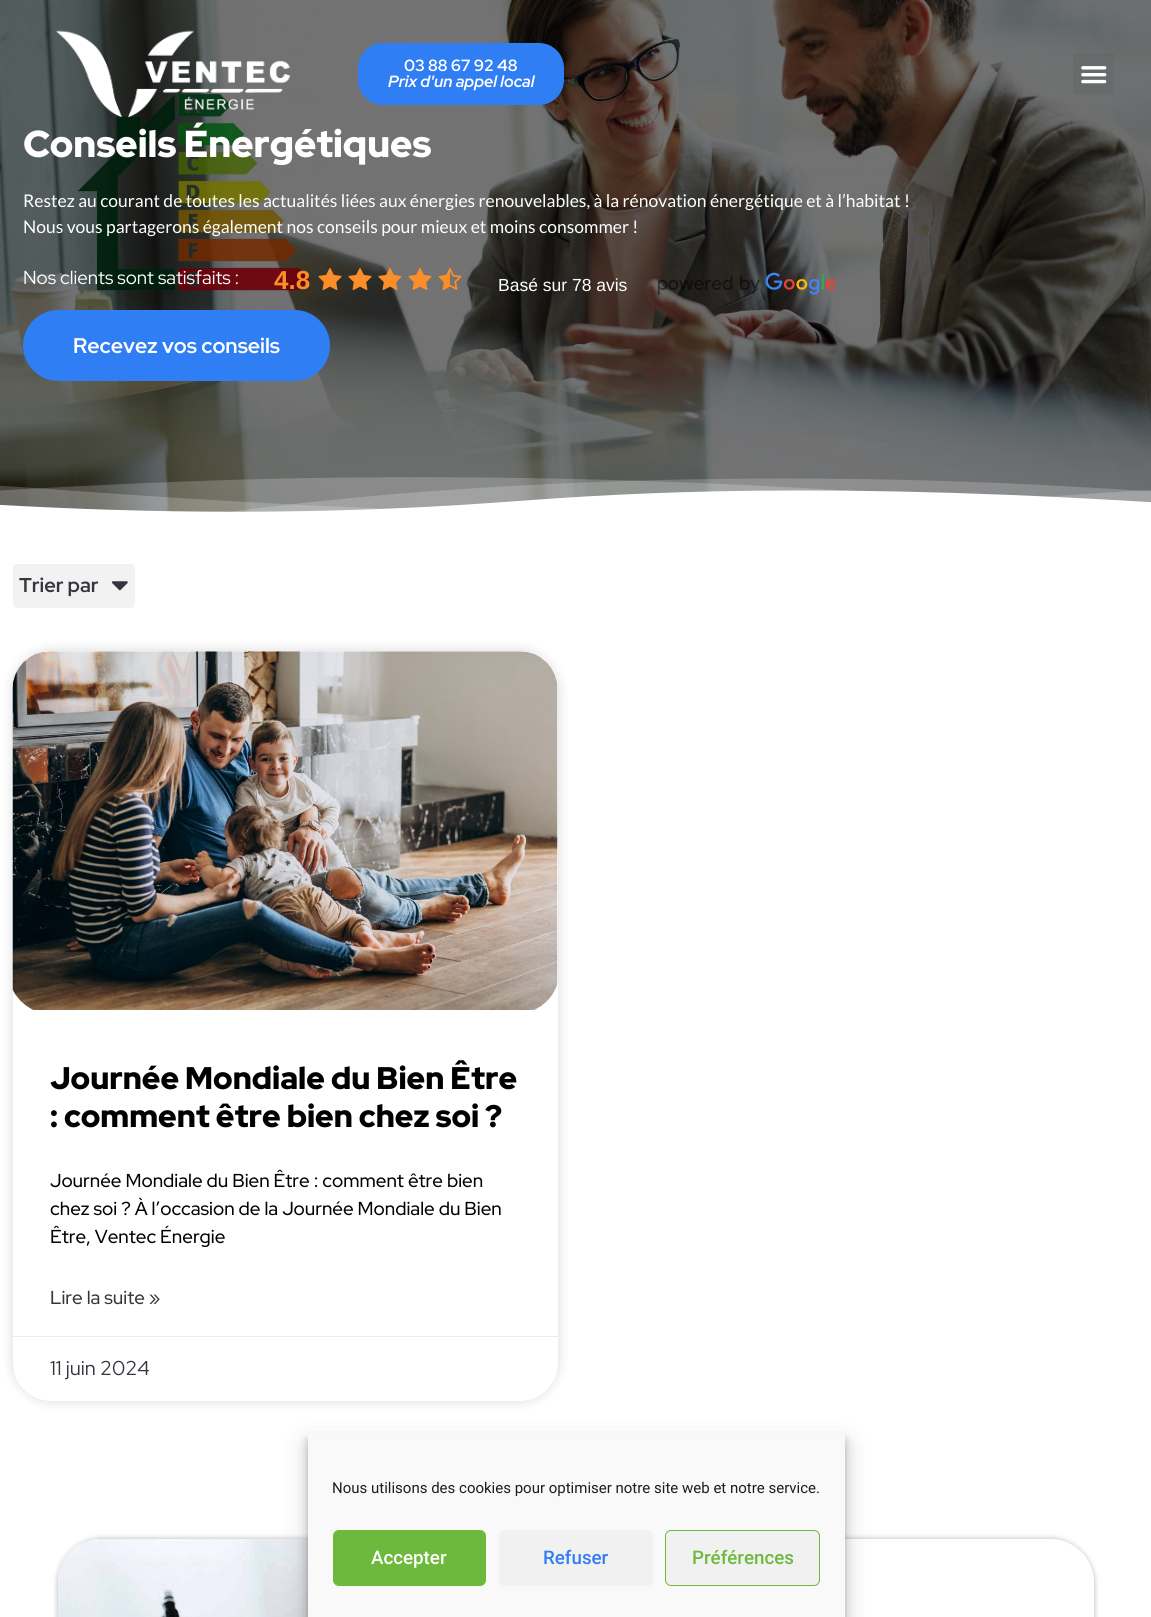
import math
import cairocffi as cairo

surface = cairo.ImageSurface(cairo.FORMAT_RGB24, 1151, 1617)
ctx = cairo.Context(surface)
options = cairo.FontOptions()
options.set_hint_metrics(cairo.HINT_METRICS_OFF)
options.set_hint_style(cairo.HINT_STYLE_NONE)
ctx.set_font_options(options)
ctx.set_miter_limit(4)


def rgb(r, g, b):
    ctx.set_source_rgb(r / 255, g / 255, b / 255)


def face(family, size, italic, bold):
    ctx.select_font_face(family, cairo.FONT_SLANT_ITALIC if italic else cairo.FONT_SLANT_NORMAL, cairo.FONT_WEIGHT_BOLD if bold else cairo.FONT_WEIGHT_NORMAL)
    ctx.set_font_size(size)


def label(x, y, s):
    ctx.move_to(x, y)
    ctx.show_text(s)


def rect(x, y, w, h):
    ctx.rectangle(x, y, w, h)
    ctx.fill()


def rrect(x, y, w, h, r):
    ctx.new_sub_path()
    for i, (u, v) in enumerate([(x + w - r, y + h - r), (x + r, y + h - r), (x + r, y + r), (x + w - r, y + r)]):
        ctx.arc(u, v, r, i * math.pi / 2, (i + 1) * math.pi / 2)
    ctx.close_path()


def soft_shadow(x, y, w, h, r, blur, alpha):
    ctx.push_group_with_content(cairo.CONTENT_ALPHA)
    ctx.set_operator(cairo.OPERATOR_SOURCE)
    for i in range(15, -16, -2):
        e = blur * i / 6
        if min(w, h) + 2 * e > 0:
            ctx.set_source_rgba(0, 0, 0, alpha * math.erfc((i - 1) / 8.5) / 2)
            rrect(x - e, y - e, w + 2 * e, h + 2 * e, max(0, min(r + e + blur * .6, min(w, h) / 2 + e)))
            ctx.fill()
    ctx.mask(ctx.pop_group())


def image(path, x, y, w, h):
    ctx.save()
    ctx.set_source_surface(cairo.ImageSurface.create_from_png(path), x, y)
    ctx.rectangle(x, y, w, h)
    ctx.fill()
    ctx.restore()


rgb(255, 255, 255)
ctx.paint()
image('image2.png', 0, 0, 1151, 512)
image('image0.png', 56, 30, 235, 88)
rgb(48, 126, 243)
rrect(358, 43, 206, 62, 25)
ctx.fill()
face('Red Hat Display', 16.25, 0, 1)
rgb(255, 255, 255)
label(404, 71, '03 88 67 92 48')
face('Red Hat Display', 16.25, 1, 1)
label(388, 87, 'Prix d\'un appel local')
ctx.set_source_rgba(0, 0, 0, 0.05)
rect(1073, 53, 41, 41)
image('image1.png', 1081, 66, 26, 18)
face('Red Hat Display Black', 37.5, 0, 0)
rgb(255, 255, 255)
label(23, 157, 'Conseils Énergétiques')
face('Lato', 17.5, 0, 0)
label(23, 207, 'Restez au courant de toutes les actualités liées aux énergies renouvelables, à la rénovation énergétique et à l’habitat !')
label(23, 233, 'Nous vous partagerons également nos conseils pour mieux et moins consommer !')
face('Red Hat Display', 18.75, 0, 0)
label(23, 284, 'Nos clients sont satisfaits :')
face('Liberation Sans', 26, 0, 1)
rgb(251, 142, 40)
label(274, 289, '4.8')
image('image3.png', 318, 268, 24, 22)
image('image4.png', 348, 268, 24, 22)
image('image5.png', 378, 268, 24, 22)
image('image6.png', 408, 268, 24, 22)
image('image7.png', 438, 268, 24, 22)
face('Liberation Sans', 17.5, 0, 0)
rgb(255, 255, 255)
label(498, 291, 'Basé sur 78 avis')
image('image8.png', 658, 272, 178, 23)
rgb(48, 126, 243)
rrect(23, 310, 307, 71, 35.5)
ctx.fill()
face('Red Hat Display', 21.25, 0, 1)
rgb(255, 255, 255)
label(73, 353, 'Recevez vos conseils')
image('image9.png', 0, 477, 1151, 43)
rgb(242, 242, 242)
rrect(13, 564, 122, 44, 4)
ctx.fill()
face('Red Hat Display', 20, 0, 1)
rgb(51, 55, 61)
label(19, 592, 'Trier par')
image('image10.png', 111, 581, 17, 10)
rgb(0, 0, 0)
soft_shadow(13, 651, 545, 750, 38, 6, 0.15)
rgb(255, 255, 255)
rrect(13, 651, 545, 750, 38)
ctx.fill()
image('image11.png', 12, 651, 546, 359)
face('Red Hat Display Black', 31.25, 0, 0)
rgb(0, 0, 0)
label(50, 1089, 'Journée Mondiale du Bien Être')
label(50, 1127, ': comment être bien chez soi ?')
face('Red Hat Display Medium', 18.75, 0, 0)
label(50, 1187, 'Journée Mondiale du Bien Être : comment être bien')
label(50, 1215, 'chez soi ? À l’occasion de la Journée Mondiale du Bien')
label(50, 1243, 'Être, Ventec Énergie')
rgb(51, 55, 61)
label(50, 1304, 'Lire la suite »')
rgb(234, 234, 234)
rect(13, 1336, 545, 1)
face('Red Hat Display', 20, 0, 0)
rgb(51, 55, 61)
label(50, 1375, '11 juin 2024')
ctx.save()
ctx.set_fill_rule(cairo.FILL_RULE_EVEN_ODD)
ctx.new_path()
ctx.move_to(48, 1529)
ctx.line_to(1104, 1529)
ctx.line_to(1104, 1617)
ctx.line_to(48, 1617)
ctx.close_path()
ctx.move_to(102, 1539)
ctx.line_to(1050, 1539)
ctx.curve_to(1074.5, 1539, 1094, 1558.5, 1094, 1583)
ctx.line_to(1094, 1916)
ctx.curve_to(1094, 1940.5, 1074.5, 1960, 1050, 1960)
ctx.line_to(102, 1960)
ctx.curve_to(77.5, 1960, 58, 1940.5, 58, 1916)
ctx.line_to(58, 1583)
ctx.curve_to(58, 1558.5, 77.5, 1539, 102, 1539)
ctx.close_path()
ctx.clip()
rgb(0, 0, 0)
soft_shadow(58, 1539, 1036, 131, 44, 3, 0.3)
ctx.restore()
image('image12.png', 58, 1539, 250, 78)
rgb(0, 0, 0)
soft_shadow(308, 1440, 537, 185, 0, 4, 0.23)
soft_shadow(308, 1445, 537, 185, 0, 12.5, 0.19)
rgb(249, 249, 249)
rect(308, 1433, 537, 184)
ctx.save()
ctx.rectangle(333, 1476, 487, 29)
ctx.clip()
face('Roboto', 15, 0, 0)
rgb(25, 30, 35)
label(332, 1493, 'Nous utilisons des cookies pour optimiser notre site web et notre service.')
ctx.restore()
rgb(109, 185, 61)
rrect(333.5, 1530.5, 152, 55, 5.5)
ctx.fill_preserve()
ctx.set_line_width(1)
ctx.stroke()
face('Roboto Medium', 18.75, 0, 0)
rgb(255, 255, 255)
label(371, 1564, 'Accepter')
rgb(241, 241, 241)
rrect(499, 1530, 154, 56, 6)
ctx.fill()
rgb(48, 126, 243)
label(543, 1564, 'Refuser')
rgb(241, 241, 241)
rrect(665.5, 1530.5, 154, 55, 5.5)
ctx.fill_preserve()
rgb(109, 185, 61)
ctx.stroke()
label(692, 1564, 'Préférences')
surface.write_to_png('render.png')
